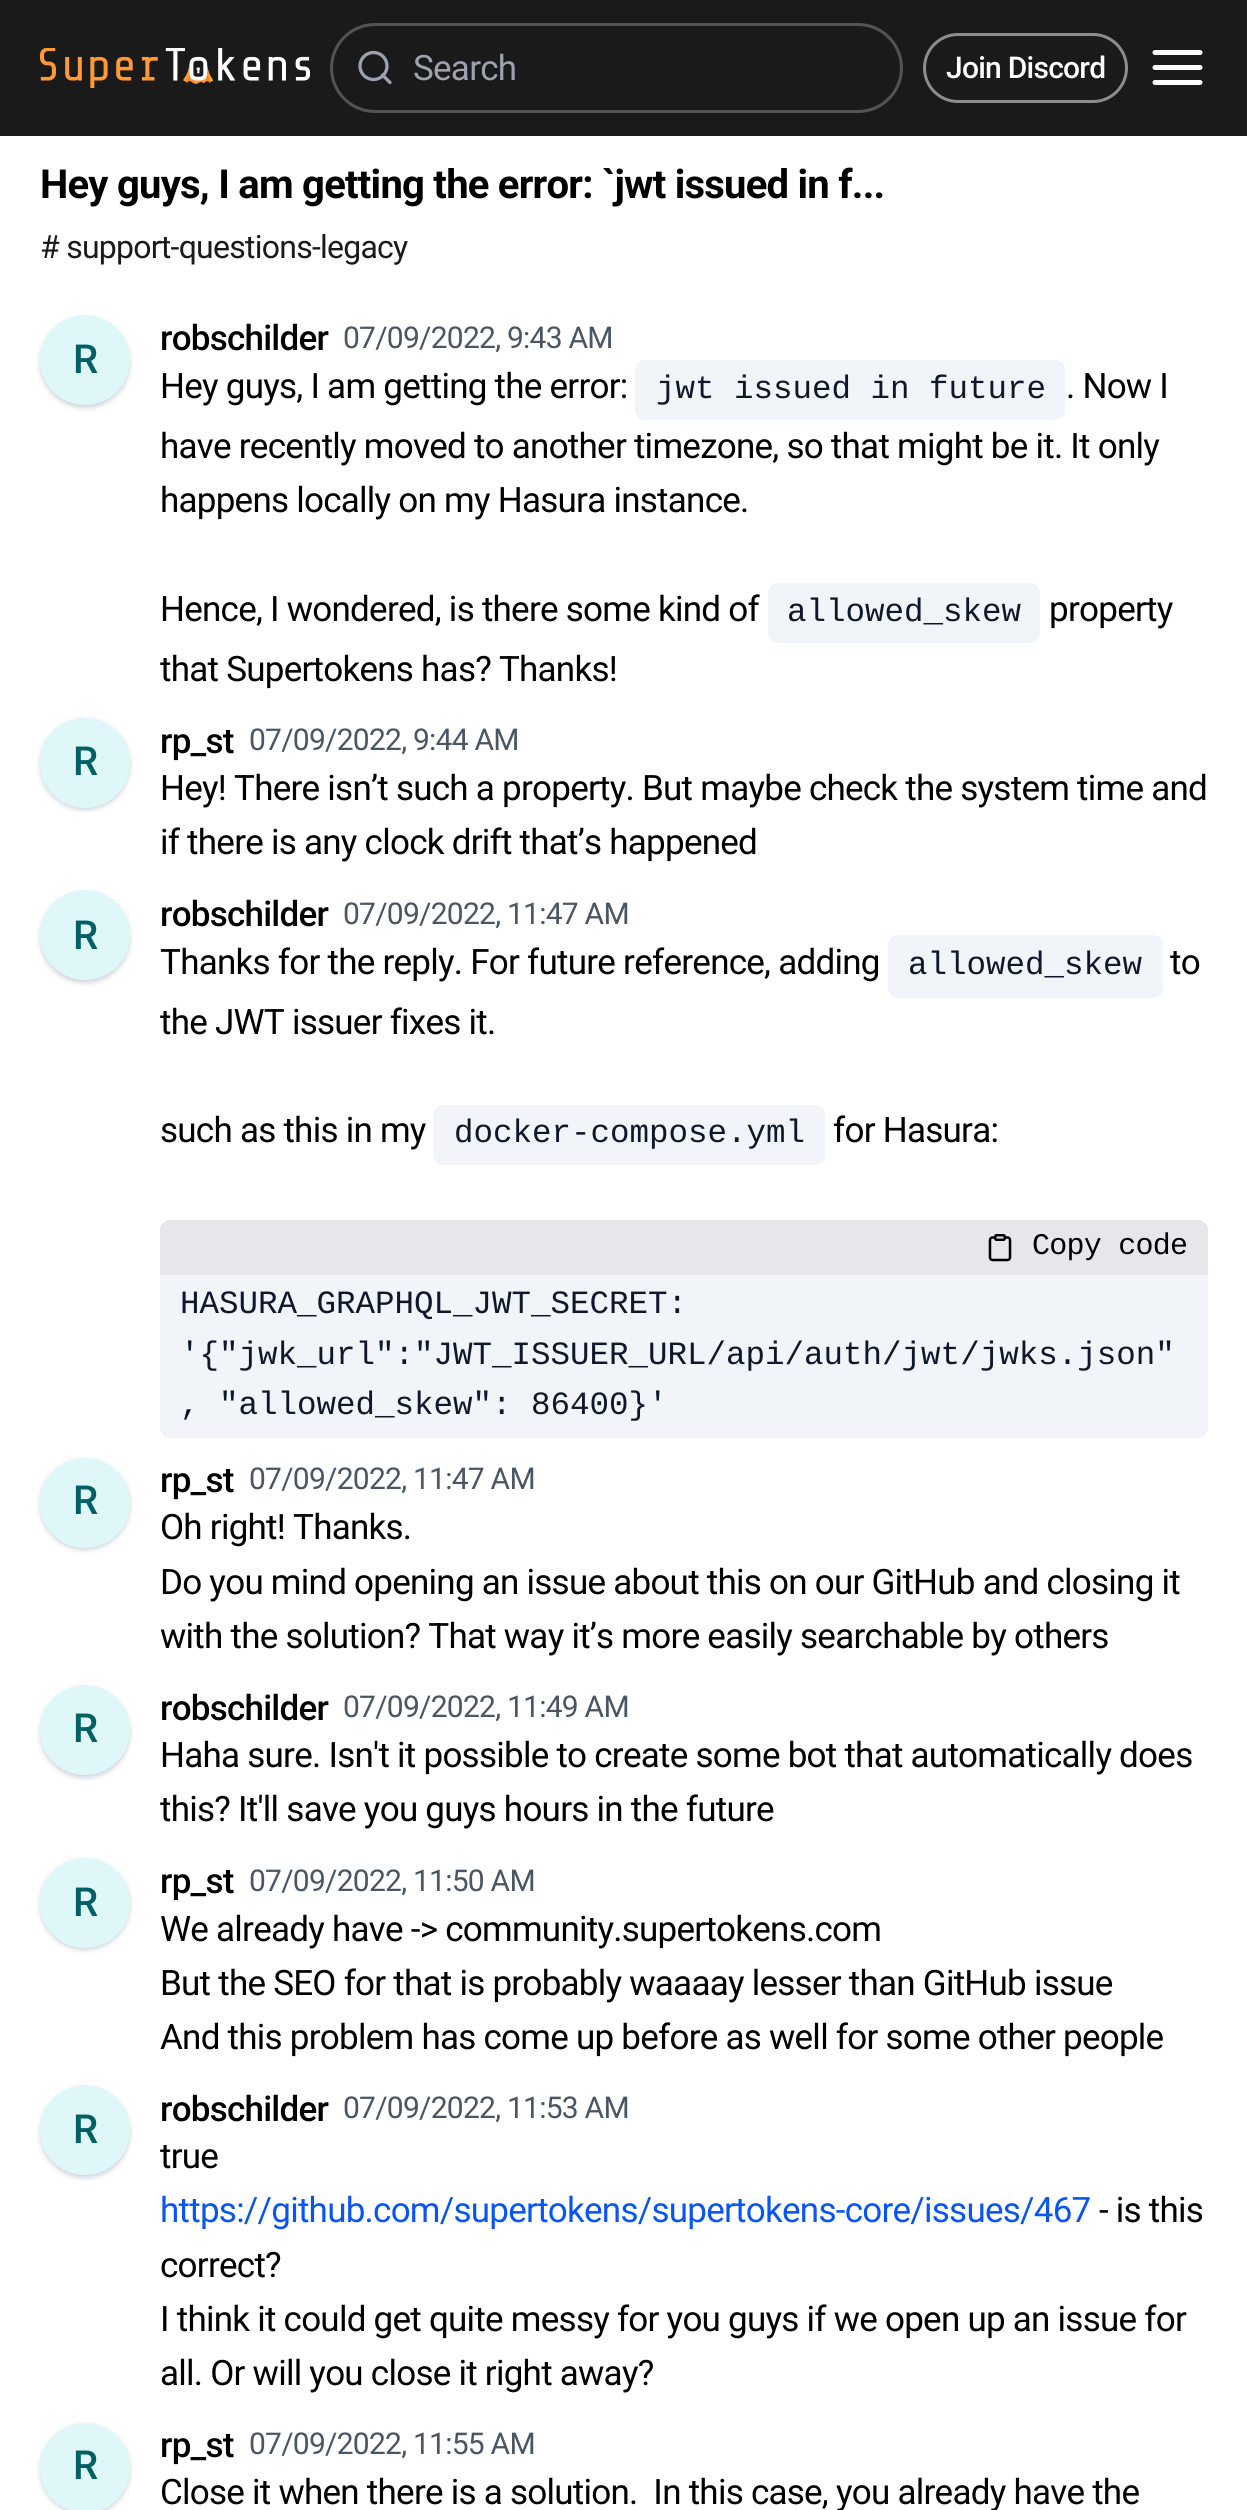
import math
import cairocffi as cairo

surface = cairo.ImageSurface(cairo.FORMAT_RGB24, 1247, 2510)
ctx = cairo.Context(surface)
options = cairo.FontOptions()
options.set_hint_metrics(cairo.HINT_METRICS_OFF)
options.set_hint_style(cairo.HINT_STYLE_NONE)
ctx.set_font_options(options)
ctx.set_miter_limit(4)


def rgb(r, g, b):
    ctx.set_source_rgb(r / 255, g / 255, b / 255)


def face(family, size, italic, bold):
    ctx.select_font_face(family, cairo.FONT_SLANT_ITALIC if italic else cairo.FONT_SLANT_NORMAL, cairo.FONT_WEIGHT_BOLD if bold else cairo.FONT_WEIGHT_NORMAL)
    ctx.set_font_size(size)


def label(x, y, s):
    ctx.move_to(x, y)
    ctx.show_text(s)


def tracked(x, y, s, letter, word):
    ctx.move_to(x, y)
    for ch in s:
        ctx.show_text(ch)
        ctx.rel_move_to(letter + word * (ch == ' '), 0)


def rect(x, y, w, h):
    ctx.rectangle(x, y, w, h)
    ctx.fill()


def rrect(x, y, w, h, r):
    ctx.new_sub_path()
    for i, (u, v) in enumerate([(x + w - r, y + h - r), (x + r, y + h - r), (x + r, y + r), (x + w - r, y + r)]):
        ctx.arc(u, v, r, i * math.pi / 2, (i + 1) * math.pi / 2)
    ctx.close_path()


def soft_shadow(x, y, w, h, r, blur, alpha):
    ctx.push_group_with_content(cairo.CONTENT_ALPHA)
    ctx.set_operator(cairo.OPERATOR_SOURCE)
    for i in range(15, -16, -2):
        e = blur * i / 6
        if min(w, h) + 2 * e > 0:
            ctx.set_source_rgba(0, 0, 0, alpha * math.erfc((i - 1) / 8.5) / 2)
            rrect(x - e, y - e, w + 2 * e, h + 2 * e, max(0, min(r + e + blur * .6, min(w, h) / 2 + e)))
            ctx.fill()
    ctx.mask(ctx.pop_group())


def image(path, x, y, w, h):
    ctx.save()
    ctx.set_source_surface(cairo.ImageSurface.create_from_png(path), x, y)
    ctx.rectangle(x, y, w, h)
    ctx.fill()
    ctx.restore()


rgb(255, 255, 255)
ctx.paint()
rgb(26, 26, 26)
rect(0, 0, 1247, 136)
image('image0.png', 40, 48, 270, 40)
rrect(331.5, 24.5, 570, 87, 43.5)
rgb(83, 83, 83)
ctx.set_line_width(3)
ctx.stroke()
ctx.arc(373.5, 66, 13.5, 0, 2 * math.pi)
rgb(156, 163, 175)
ctx.set_line_width(3.3)
ctx.stroke()
ctx.new_path()
ctx.move_to(390, 82.5)
ctx.line_to(382.5, 75)
ctx.set_line_cap(cairo.LINE_CAP_ROUND)
ctx.set_line_join(cairo.LINE_JOIN_ROUND)
ctx.stroke()
face('Roboto', 35, 0, 0)
tracked(413, 80, 'Search', -0.75, 0)
rrect(924.5, 34.5, 202, 67, 33.5)
rgb(141, 141, 141)
ctx.set_line_width(3)
ctx.set_line_cap(cairo.LINE_CAP_BUTT)
ctx.set_line_join(cairo.LINE_JOIN_MITER)
ctx.stroke()
face('Roboto Medium', 30, 0, 0)
rgb(255, 255, 255)
tracked(946, 78, 'Join Discord', -0.75, 0)
ctx.new_path()
ctx.move_to(1155, 67.5)
ctx.line_to(1200, 67.5)
ctx.move_to(1155, 52.5)
ctx.line_to(1200, 52.5)
ctx.move_to(1155, 82.5)
ctx.line_to(1200, 82.5)
ctx.set_line_width(5)
ctx.set_line_cap(cairo.LINE_CAP_ROUND)
ctx.set_line_join(cairo.LINE_JOIN_ROUND)
ctx.stroke()
face('Roboto', 40, 0, 1)
rgb(0, 0, 0)
tracked(40, 198, 'Hey guys, I am getting the error: `jwt issued in f...', -0.75, 0)
face('Roboto', 32, 0, 0)
rgb(26, 26, 26)
tracked(40, 258, '# support-questions-legacy', -0.75, 0)
rgb(209, 213, 219)
soft_shadow(40, 318, 90, 90, 45, 2.5, 1)
rgb(224, 247, 250)
ctx.arc(85, 360, 45, 0, 2 * math.pi)
ctx.fill()
face('Roboto Medium', 40, 0, 0)
rgb(0, 96, 100)
tracked(73, 373, 'R', -0.75, 0)
face('Roboto Medium', 35, 0, 0)
rgb(0, 0, 0)
tracked(160, 350, 'robschilder', -0.75, 0)
face('Roboto', 30, 0, 0)
rgb(75, 85, 99)
tracked(343, 348, '07/09/2022, 9:43 AM', -0.75, 0)
face('Roboto', 35, 0, 0)
rgb(0, 0, 0)
tracked(160, 398, 'Hey guys, I am getting the error:', -0.75, 0)
rgb(241, 245, 249)
rrect(635, 360, 430, 60, 10)
ctx.fill()
face('Liberation Mono', 32.5, 0, 0)
rgb(15, 23, 42)
label(656, 398, 'jwt issued in future')
face('Roboto', 35, 0, 0)
rgb(0, 0, 0)
tracked(1066, 398, '. Now I', -0.75, 0)
tracked(160, 458, 'have recently moved to another timezone, so that might be it. It only', -0.75, 0)
tracked(160, 512, 'happens locally on my Hasura instance.', -0.75, 0)
tracked(160, 621, 'Hence, I wondered, is there some kind of', -0.75, 0)
rgb(241, 245, 249)
rrect(768, 583, 272, 60, 10)
ctx.fill()
face('Liberation Mono', 32.5, 0, 0)
rgb(15, 23, 42)
label(787, 621, 'allowed_skew')
face('Roboto', 35, 0, 0)
rgb(0, 0, 0)
tracked(1049, 621, 'property', -0.75, 0)
tracked(160, 681, 'that Supertokens has? Thanks!', -0.75, 0)
rgb(209, 213, 219)
soft_shadow(40, 720, 90, 90, 45, 2.5, 1)
rgb(224, 247, 250)
ctx.arc(85, 763, 45, 0, 2 * math.pi)
ctx.fill()
face('Roboto Medium', 40, 0, 0)
rgb(0, 96, 100)
tracked(73, 775, 'R', -0.75, 0)
face('Roboto Medium', 35, 0, 0)
rgb(0, 0, 0)
tracked(160, 753, 'rp_st', -0.75, 0)
face('Roboto', 30, 0, 0)
rgb(75, 85, 99)
tracked(249, 750, '07/09/2022, 9:44 AM', -0.75, 0)
face('Roboto', 35, 0, 0)
rgb(0, 0, 0)
tracked(160, 800, 'Hey! There isn’t such a property. But maybe check the system time and', -0.75, 0)
tracked(160, 854, 'if there is any clock drift that’s happened', -0.75, 0)
rgb(209, 213, 219)
soft_shadow(40, 893, 90, 90, 45, 2.5, 1)
rgb(224, 247, 250)
ctx.arc(85, 935, 45, 0, 2 * math.pi)
ctx.fill()
face('Roboto Medium', 40, 0, 0)
rgb(0, 96, 100)
tracked(73, 949, 'R', -0.75, 0)
face('Roboto Medium', 35, 0, 0)
rgb(0, 0, 0)
tracked(160, 926, 'robschilder', -0.75, 0)
face('Roboto', 30, 0, 0)
rgb(75, 85, 99)
tracked(343, 924, '07/09/2022, 11:47 AM', -0.75, 0)
face('Roboto', 35, 0, 0)
rgb(0, 0, 0)
tracked(160, 974, 'Thanks for the reply. For future reference, adding', -0.75, 0)
rgb(241, 245, 249)
rrect(888, 935, 275, 63, 10)
ctx.fill()
face('Liberation Mono', 32.5, 0, 0)
rgb(15, 23, 42)
label(908, 974, 'allowed_skew')
face('Roboto', 35, 0, 0)
rgb(0, 0, 0)
tracked(1170, 974, 'to', -0.75, 0)
tracked(160, 1034, 'the JWT issuer fixes it.', -0.75, 0)
tracked(160, 1142, 'such as this in my', -0.75, 0)
rgb(241, 245, 249)
rrect(433, 1105, 392, 60, 10)
ctx.fill()
face('Liberation Mono', 32.5, 0, 0)
rgb(15, 23, 42)
label(454, 1142, 'docker-compose.yml')
face('Roboto', 35, 0, 0)
rgb(0, 0, 0)
tracked(833, 1142, 'for Hasura:', -0.75, 0)
rgb(229, 231, 235)
ctx.new_path()
ctx.move_to(170, 1220)
ctx.line_to(1198, 1220)
ctx.curve_to(1203.5, 1220, 1208, 1224.5, 1208, 1230)
ctx.line_to(1208, 1275)
ctx.line_to(160, 1275)
ctx.line_to(160, 1230)
ctx.curve_to(160, 1224.5, 164.5, 1220, 170, 1220)
ctx.close_path()
ctx.fill()
image('image1.png', 988, 1234, 24, 28)
face('Liberation Mono', 30, 0, 0)
rgb(0, 0, 0)
tracked(1032, 1254, 'Copy code', -0.75, 0)
rgb(241, 245, 249)
ctx.new_path()
ctx.move_to(160, 1275)
ctx.line_to(1208, 1275)
ctx.line_to(1208, 1428)
ctx.curve_to(1208, 1433.5, 1203.5, 1438, 1198, 1438)
ctx.line_to(170, 1438)
ctx.curve_to(164.5, 1438, 160, 1433.5, 160, 1428)
ctx.close_path()
ctx.fill()
face('Liberation Mono', 32.5, 0, 0)
rgb(15, 23, 42)
label(180, 1313, 'HASURA_GRAPHQL_JWT_SECRET:')
label(180, 1364, '\'{"jwk_url":"JWT_ISSUER_URL/api/auth/jwt/jwks.json"')
label(180, 1414, ', "allowed_skew": 86400}\'')
rgb(209, 213, 219)
soft_shadow(40, 1460, 90, 90, 45, 2.5, 1)
rgb(224, 247, 250)
ctx.arc(85, 1503, 45, 0, 2 * math.pi)
ctx.fill()
face('Roboto Medium', 40, 0, 0)
rgb(0, 96, 100)
tracked(73, 1514, 'R', -0.75, 0)
face('Roboto Medium', 35, 0, 0)
rgb(0, 0, 0)
tracked(160, 1492, 'rp_st', -0.75, 0)
face('Roboto', 30, 0, 0)
rgb(75, 85, 99)
tracked(249, 1489, '07/09/2022, 11:47 AM', -0.75, 0)
face('Roboto', 35, 0, 0)
rgb(0, 0, 0)
tracked(160, 1539, 'Oh right! Thanks.', -0.75, 0)
tracked(160, 1594, 'Do you mind opening an issue about this on our GitHub and closing it', -0.75, 0)
tracked(160, 1648, 'with the solution? That way it’s more easily searchable by others', -0.75, 0)
rgb(209, 213, 219)
soft_shadow(40, 1688, 90, 90, 45, 2.5, 1)
rgb(224, 247, 250)
ctx.arc(85, 1730, 45, 0, 2 * math.pi)
ctx.fill()
face('Roboto Medium', 40, 0, 0)
rgb(0, 96, 100)
tracked(73, 1742, 'R', -0.75, 0)
face('Roboto Medium', 35, 0, 0)
rgb(0, 0, 0)
tracked(160, 1720, 'robschilder', -0.75, 0)
face('Roboto', 30, 0, 0)
rgb(75, 85, 99)
tracked(343, 1717, '07/09/2022, 11:49 AM', -0.75, 0)
face('Roboto', 35, 0, 0)
rgb(0, 0, 0)
tracked(160, 1767, 'Haha sure. Isn\'t it possible to create some bot that automatically does', -0.75, 0)
tracked(160, 1821, 'this? It\'ll save you guys hours in the future', -0.75, 0)
rgb(209, 213, 219)
soft_shadow(40, 1860, 90, 90, 45, 2.5, 1)
rgb(224, 247, 250)
ctx.arc(85, 1903, 45, 0, 2 * math.pi)
ctx.fill()
face('Roboto Medium', 40, 0, 0)
rgb(0, 96, 100)
tracked(73, 1916, 'R', -0.75, 0)
face('Roboto Medium', 35, 0, 0)
rgb(0, 0, 0)
tracked(160, 1893, 'rp_st', -0.75, 0)
face('Roboto', 30, 0, 0)
rgb(75, 85, 99)
tracked(249, 1891, '07/09/2022, 11:50 AM', -0.75, 0)
face('Roboto', 35, 0, 0)
rgb(0, 0, 0)
tracked(160, 1941, 'We already have -> community.supertokens.com', -0.75, 0)
tracked(160, 1995, 'But the SEO for that is probably waaaay lesser than GitHub issue', -0.75, 0)
tracked(160, 2049, 'And this problem has come up before as well for some other people', -0.75, 0)
rgb(209, 213, 219)
soft_shadow(40, 2088, 90, 90, 45, 2.5, 1)
rgb(224, 247, 250)
ctx.arc(85, 2130, 45, 0, 2 * math.pi)
ctx.fill()
face('Roboto Medium', 40, 0, 0)
rgb(0, 96, 100)
tracked(73, 2143, 'R', -0.75, 0)
face('Roboto Medium', 35, 0, 0)
rgb(0, 0, 0)
tracked(160, 2121, 'robschilder', -0.75, 0)
face('Roboto', 30, 0, 0)
rgb(75, 85, 99)
tracked(343, 2118, '07/09/2022, 11:53 AM', -0.75, 0)
face('Roboto', 35, 0, 0)
rgb(0, 0, 0)
tracked(160, 2168, 'true', -0.75, 0)
rgb(8, 85, 244)
tracked(160, 2222, 'https://github.com/supertokens/supertokens-core/issues/467', -0.75, 0)
rgb(0, 0, 0)
tracked(1099, 2222, '- is this', -0.75, 0)
tracked(160, 2277, 'correct?', -0.75, 0)
tracked(160, 2331, 'I think it could get quite messy for you guys if we open up an issue for', -0.75, 0)
tracked(160, 2385, 'all. Or will you close it right away?', -0.75, 0)
rgb(209, 213, 219)
soft_shadow(40, 2425, 90, 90, 45, 2.5, 1)
rgb(224, 247, 250)
ctx.arc(85, 2468, 45, 0, 2 * math.pi)
ctx.fill()
face('Roboto Medium', 40, 0, 0)
rgb(0, 96, 100)
tracked(73, 2479, 'R', -0.75, 0)
face('Roboto Medium', 35, 0, 0)
rgb(0, 0, 0)
tracked(160, 2457, 'rp_st', -0.75, 0)
face('Roboto', 30, 0, 0)
rgb(75, 85, 99)
tracked(249, 2454, '07/09/2022, 11:55 AM', -0.75, 0)
face('Roboto', 35, 0, 0)
rgb(0, 0, 0)
tracked(160, 2504, 'Close it when there is a solution.  In this case, you already have the', -0.75, 0)
surface.write_to_png('render.png')
